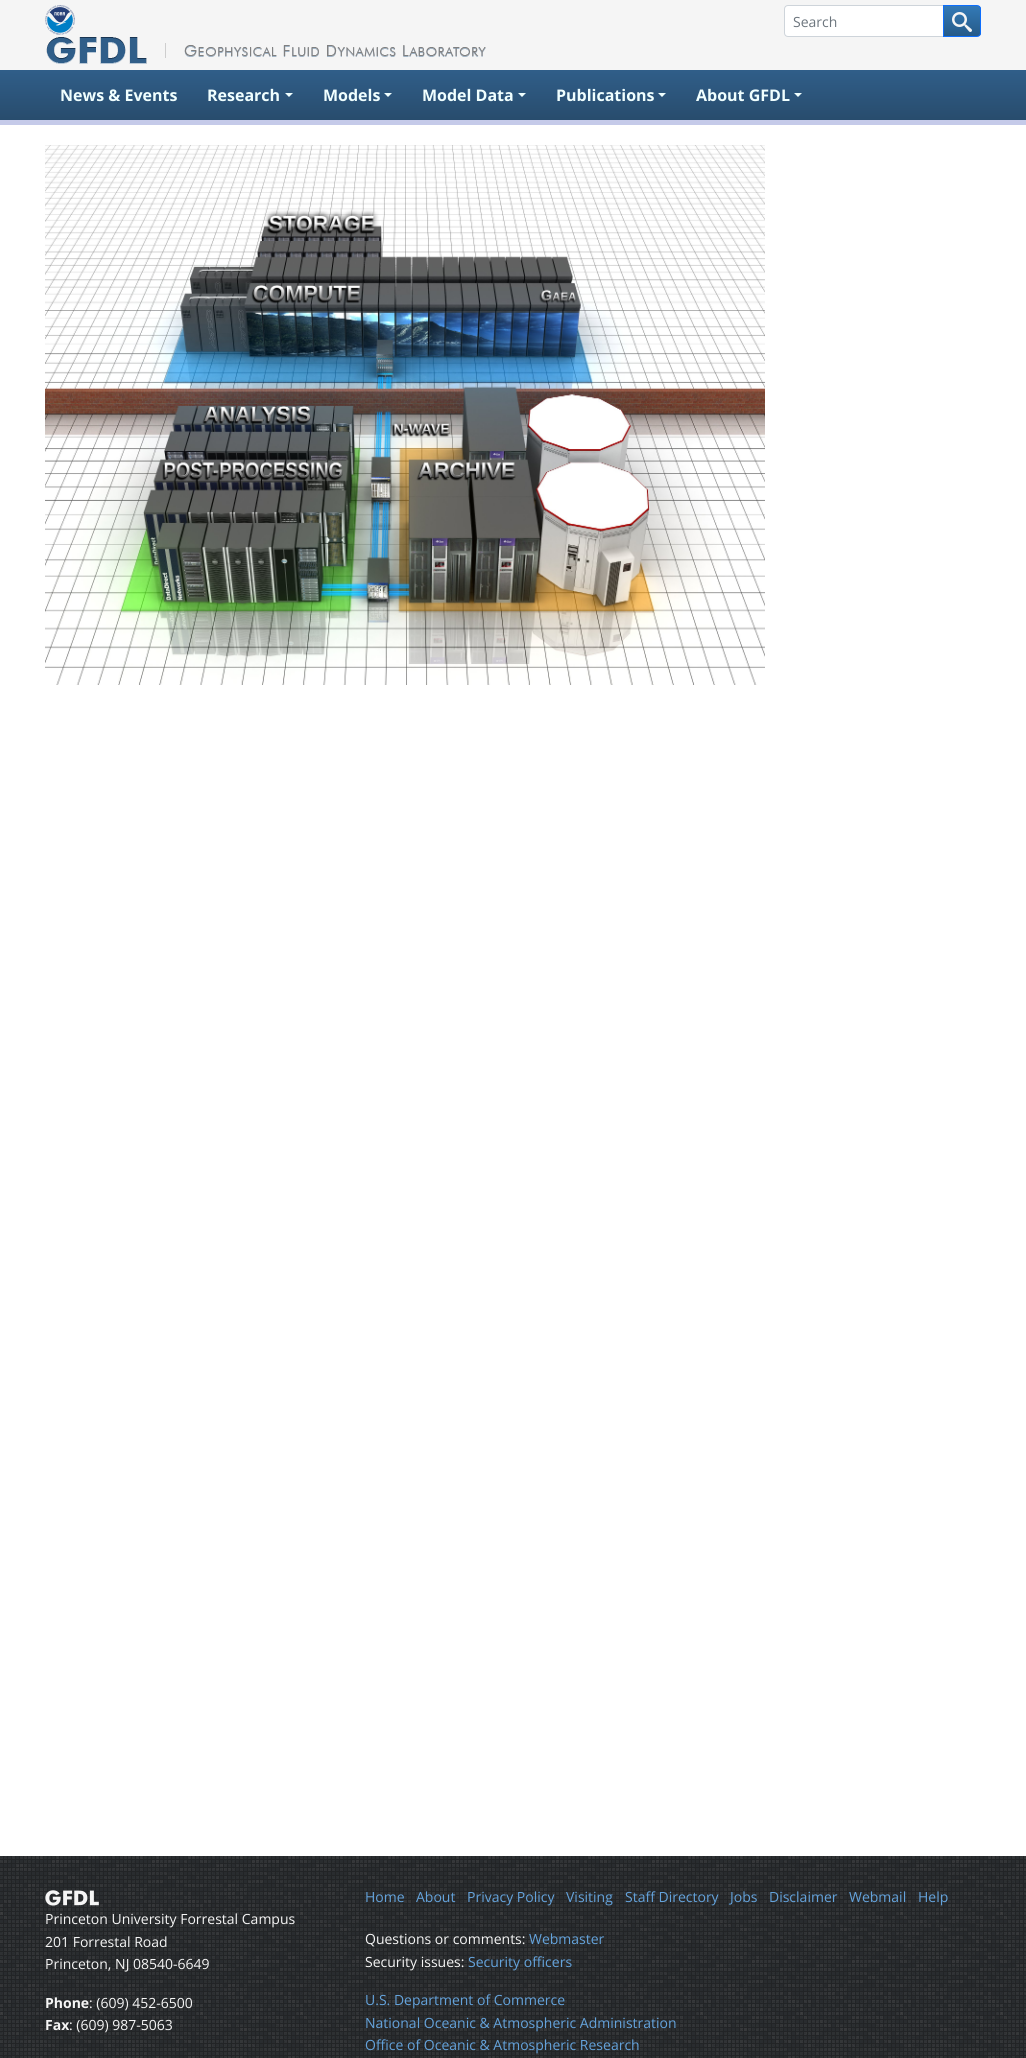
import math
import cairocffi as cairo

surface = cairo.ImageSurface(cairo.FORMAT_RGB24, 1026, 2058)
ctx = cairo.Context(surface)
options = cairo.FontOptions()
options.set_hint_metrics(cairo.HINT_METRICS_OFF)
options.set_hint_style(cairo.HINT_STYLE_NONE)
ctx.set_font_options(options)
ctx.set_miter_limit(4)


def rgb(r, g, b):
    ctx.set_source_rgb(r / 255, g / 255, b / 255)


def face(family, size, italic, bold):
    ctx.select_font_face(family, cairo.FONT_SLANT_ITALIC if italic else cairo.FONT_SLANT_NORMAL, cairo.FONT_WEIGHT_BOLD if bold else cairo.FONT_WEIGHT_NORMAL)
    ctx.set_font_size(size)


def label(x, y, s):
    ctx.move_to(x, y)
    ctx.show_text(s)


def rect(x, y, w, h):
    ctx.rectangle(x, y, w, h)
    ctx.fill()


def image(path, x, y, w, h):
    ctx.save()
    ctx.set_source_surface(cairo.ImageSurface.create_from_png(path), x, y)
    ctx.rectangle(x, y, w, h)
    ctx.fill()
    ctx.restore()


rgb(255, 255, 255)
ctx.paint()
rgb(245, 245, 245)
rect(0, 0, 1026, 70)
image('image0.png', 45, 5, 30, 30)
image('image1.png', 46, 37, 101, 27)
image('image2.png', 165, 43, 321, 15)
rgb(255, 255, 255)
ctx.new_path()
ctx.move_to(788, 5.5)
ctx.line_to(943.5, 5.5)
ctx.line_to(943.5, 36.5)
ctx.line_to(788, 36.5)
ctx.curve_to(786, 36.5, 784.5, 35, 784.5, 33)
ctx.line_to(784.5, 9)
ctx.curve_to(784.5, 7, 786, 5.5, 788, 5.5)
ctx.close_path()
ctx.fill_preserve()
rgb(206, 212, 218)
ctx.set_line_width(1)
ctx.stroke()
face('Open Sans', 14, 0, 0)
rgb(108, 117, 125)
label(793, 27, 'Search')
ctx.save()
ctx.new_path()
ctx.move_to(943, 5)
ctx.line_to(977, 5)
ctx.curve_to(979, 5, 981, 7, 981, 9)
ctx.line_to(981, 33)
ctx.curve_to(981, 35, 979, 37, 977, 37)
ctx.line_to(943, 37)
ctx.close_path()
ctx.clip()
gradient = cairo.LinearGradient(962, 6, 962, 36)
gradient.add_color_stop_rgba(0, 0.2, 0.478, 0.718, 1)
gradient.add_color_stop_rgba(1, 0.149, 0.353, 0.533, 1)
ctx.set_source(gradient)
rect(944, 6, 37, 30)
ctx.restore()
ctx.new_path()
ctx.move_to(943.5, 5.5)
ctx.line_to(977, 5.5)
ctx.curve_to(979, 5.5, 980.5, 7, 980.5, 9)
ctx.line_to(980.5, 33)
ctx.curve_to(980.5, 35, 979, 36.5, 977, 36.5)
ctx.line_to(943.5, 36.5)
ctx.close_path()
rgb(13, 110, 253)
ctx.stroke()
image('image3.png', 952, 12, 20, 20)
gradient = cairo.LinearGradient(513, 70, 513, 120)
gradient.add_color_stop_rgba(0, 0.188, 0.369, 0.537, 1)
gradient.add_color_stop_rgba(1, 0.157, 0.298, 0.427, 1)
ctx.set_source(gradient)
rect(0, 70, 1026, 50)
rgb(197, 202, 233)
rect(0, 120, 1026, 5)
face('Open Sans', 16, 0, 1)
rgb(240, 255, 255)
label(60, 101, 'News & Events')
label(207, 101, 'Research')
ctx.new_path()
ctx.move_to(285, 93)
ctx.line_to(293, 93)
ctx.line_to(289, 97)
ctx.close_path()
ctx.fill()
label(323, 101, 'Models')
ctx.new_path()
ctx.move_to(384, 93)
ctx.line_to(392, 93)
ctx.line_to(388, 97)
ctx.close_path()
ctx.fill()
label(422, 101, 'Model Data')
ctx.new_path()
ctx.move_to(518, 93)
ctx.line_to(526, 93)
ctx.line_to(522, 97)
ctx.close_path()
ctx.fill()
label(556, 101, 'Publications')
ctx.new_path()
ctx.move_to(658, 93)
ctx.line_to(666, 93)
ctx.line_to(662, 97)
ctx.close_path()
ctx.fill()
label(696, 101, 'About GFDL')
ctx.new_path()
ctx.move_to(794, 93)
ctx.line_to(802, 93)
ctx.line_to(798, 97)
ctx.close_path()
ctx.fill()
image('image4.png', 45, 145, 720, 540)
rgb(41, 44, 47)
rect(0, 1856, 1026, 202)
image('image5.png', 0, 1856, 1026, 202)
image('image6.png', 45, 1890, 54, 16)
face('Open Sans', 14, 0, 0)
rgb(245, 245, 245)
label(45, 1924, 'Princeton University Forrestal Campus')
label(45, 1947, '201 Forrestal Road')
label(45, 1969, 'Princeton, NJ 08540-6649')
face('Open Sans', 14, 0, 1)
label(45, 2008, 'Phone')
face('Open Sans', 14, 0, 0)
label(89, 2008, ': (609) 452-6500')
face('Open Sans', 14, 0, 1)
label(45, 2030, 'Fax')
face('Open Sans', 14, 0, 0)
label(69, 2030, ': (609) 987-5063')
rgb(100, 163, 220)
label(365, 1902, 'Home')
label(416, 1902, 'About')
label(467, 1902, 'Privacy Policy')
label(566, 1902, 'Visiting')
label(625, 1902, 'Staff Directory')
label(730, 1902, 'Jobs')
label(769, 1902, 'Disclaimer')
label(849, 1902, 'Webmail')
label(918, 1902, 'Help')
rgb(245, 245, 245)
label(365, 1944, 'Questions or comments:')
rgb(100, 163, 220)
label(529, 1944, 'Webmaster')
rgb(245, 245, 245)
label(365, 1967, 'Security issues:')
rgb(100, 163, 220)
label(468, 1967, 'Security officers')
label(365, 2005, 'U.S. Department of Commerce')
label(365, 2028, 'National Oceanic & Atmospheric Administration')
label(365, 2050, 'Office of Oceanic & Atmospheric Research')
surface.write_to_png('render.png')
